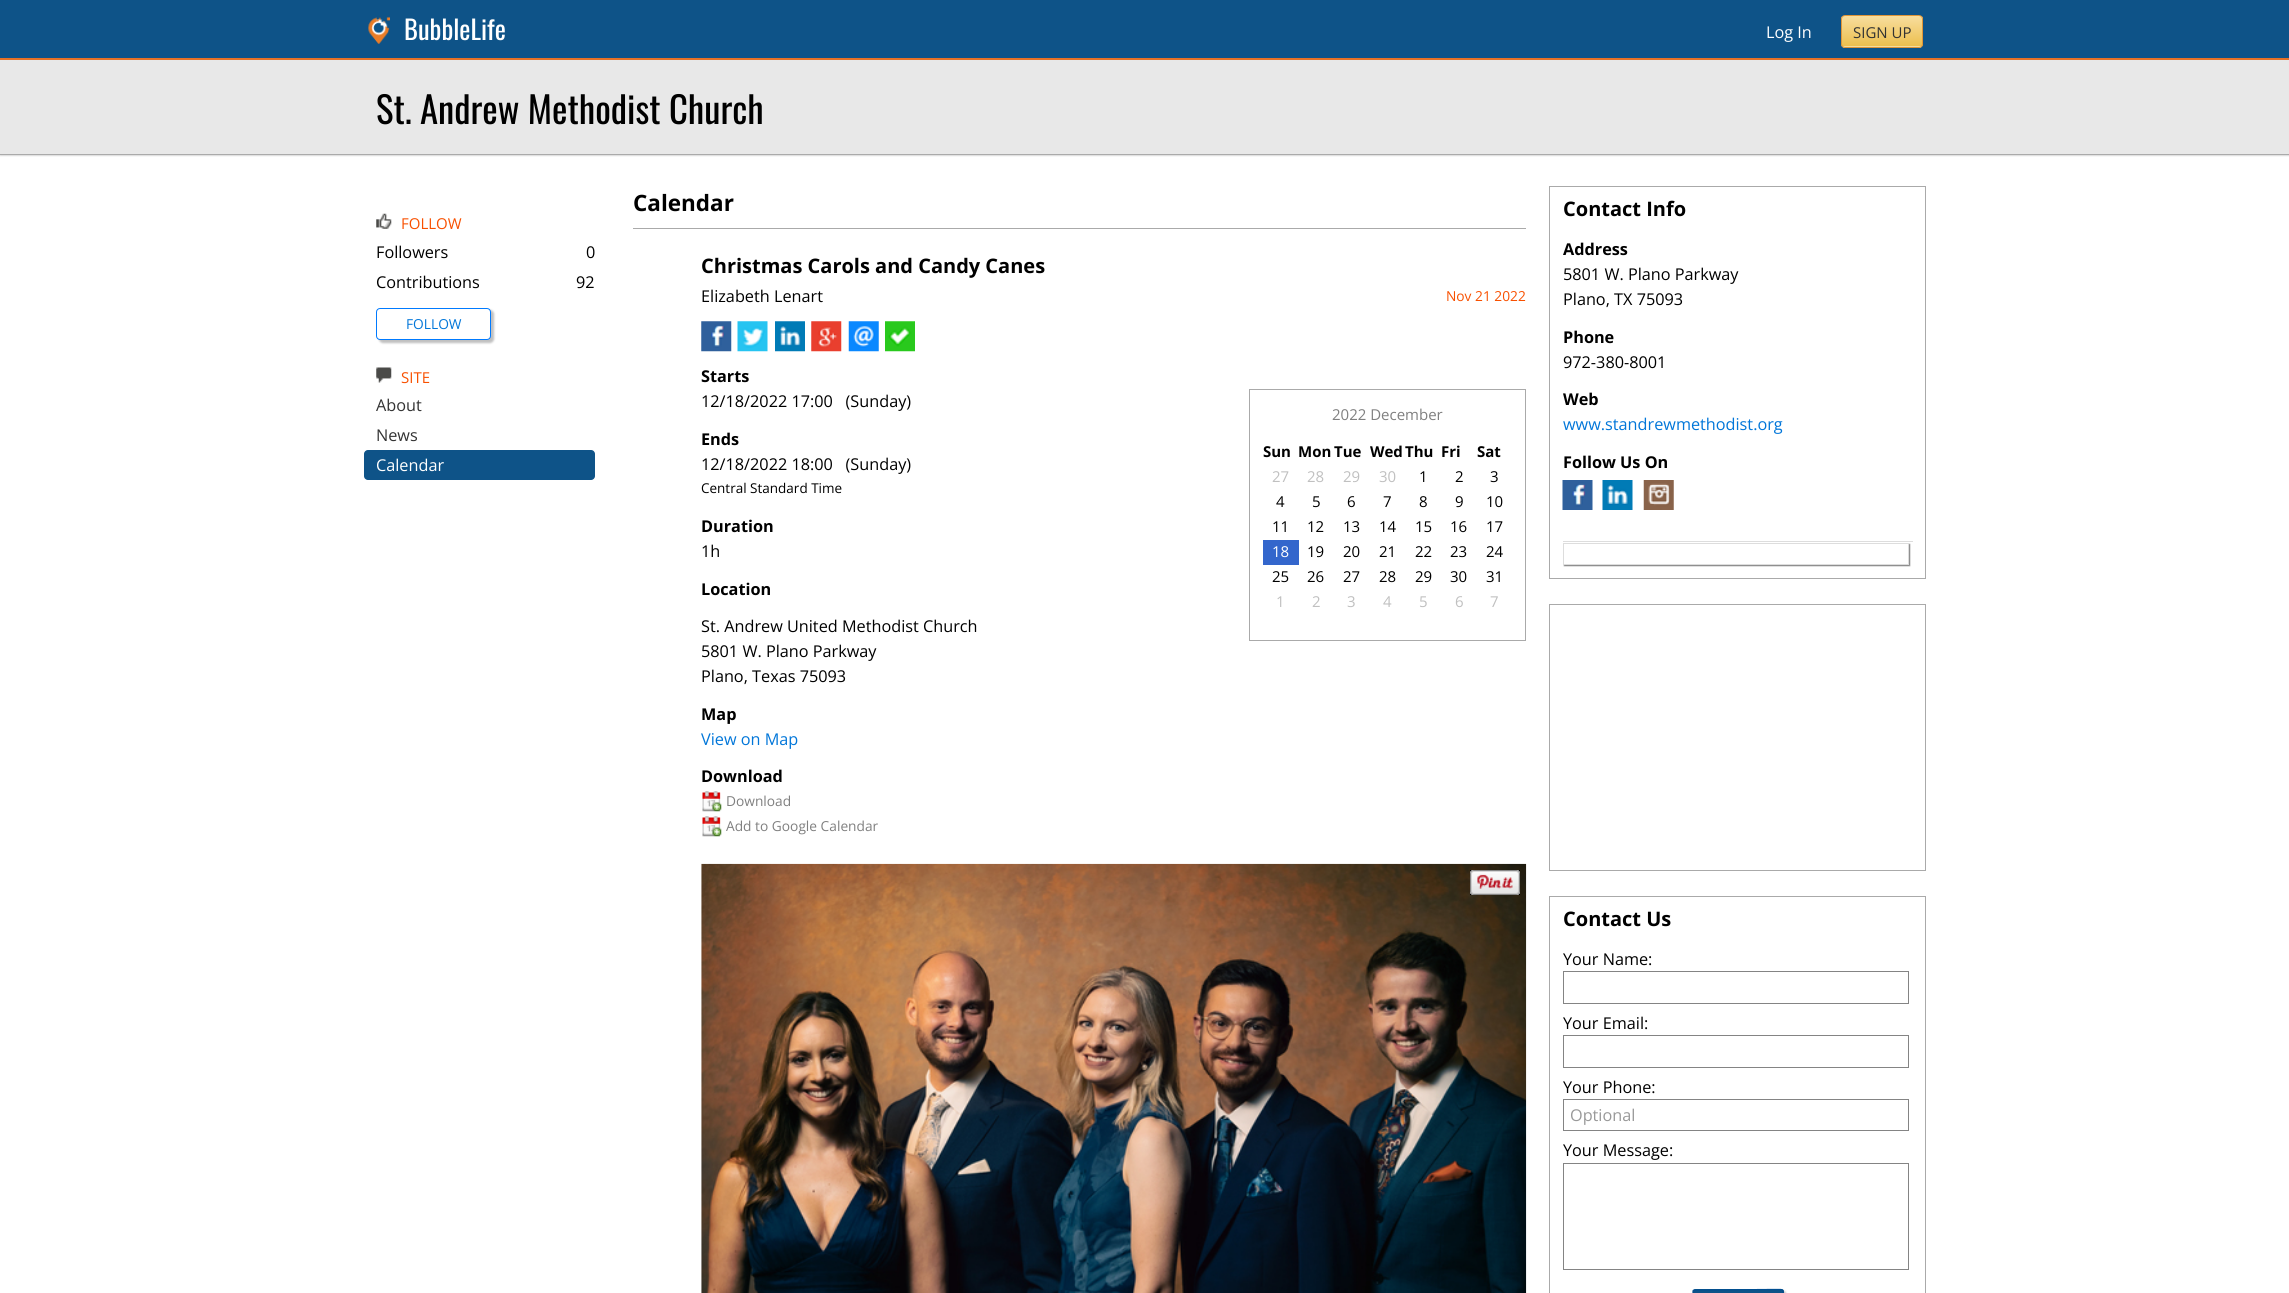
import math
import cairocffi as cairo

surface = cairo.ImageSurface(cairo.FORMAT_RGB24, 2289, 1293)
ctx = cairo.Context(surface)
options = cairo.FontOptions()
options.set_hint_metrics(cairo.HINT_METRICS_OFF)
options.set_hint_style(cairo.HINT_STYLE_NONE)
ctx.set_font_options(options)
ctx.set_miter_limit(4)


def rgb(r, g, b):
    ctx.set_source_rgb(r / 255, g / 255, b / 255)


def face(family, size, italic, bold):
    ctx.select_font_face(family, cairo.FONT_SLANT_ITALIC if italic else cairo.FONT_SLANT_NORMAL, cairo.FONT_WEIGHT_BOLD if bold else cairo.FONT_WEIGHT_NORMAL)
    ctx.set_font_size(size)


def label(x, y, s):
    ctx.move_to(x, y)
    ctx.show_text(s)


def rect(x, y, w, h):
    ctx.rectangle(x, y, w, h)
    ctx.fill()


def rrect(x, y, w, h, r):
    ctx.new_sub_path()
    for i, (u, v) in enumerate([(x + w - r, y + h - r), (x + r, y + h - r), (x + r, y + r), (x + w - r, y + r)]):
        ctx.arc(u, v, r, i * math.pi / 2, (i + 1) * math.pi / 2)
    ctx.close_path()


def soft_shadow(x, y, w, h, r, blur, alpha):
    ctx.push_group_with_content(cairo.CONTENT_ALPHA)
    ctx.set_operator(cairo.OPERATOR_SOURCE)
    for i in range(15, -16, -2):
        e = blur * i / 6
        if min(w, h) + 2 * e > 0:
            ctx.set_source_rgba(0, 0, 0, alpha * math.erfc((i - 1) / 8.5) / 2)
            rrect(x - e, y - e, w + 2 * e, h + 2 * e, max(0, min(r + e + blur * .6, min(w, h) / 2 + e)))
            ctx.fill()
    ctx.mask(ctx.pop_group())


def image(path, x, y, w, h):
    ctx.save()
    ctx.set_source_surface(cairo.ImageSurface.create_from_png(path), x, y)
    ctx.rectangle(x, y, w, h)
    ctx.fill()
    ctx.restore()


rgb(255, 255, 255)
ctx.paint()
rgb(14, 83, 136)
rect(0, 0, 2289, 58)
rgb(230, 113, 39)
rect(0, 58, 2289, 2)
image('image0.png', 368, 16, 22, 28)
face('Oswald', 26.5, 0, 0)
rgb(255, 255, 255)
label(404, 40, 'BubbleLife')
face('Open Sans', 16.25, 0, 0)
label(1766, 38, 'Log In')
ctx.save()
rrect(1841, 15, 82, 33, 4)
ctx.clip()
gradient = cairo.LinearGradient(1882, 16, 1882, 46)
gradient.add_color_stop_rgba(0, 0.969, 0.867, 0.62, 1)
gradient.add_color_stop_rgba(1, 0.929, 0.749, 0.31, 1)
ctx.set_source(gradient)
rect(1841, 16, 82, 30)
gradient = cairo.LinearGradient(1882, 46, 1882, 76)
gradient.add_color_stop_rgba(0, 0.969, 0.867, 0.62, 1)
gradient.add_color_stop_rgba(1, 0.929, 0.749, 0.31, 1)
ctx.set_source(gradient)
rect(1841, 46, 82, 2)
ctx.restore()
rrect(1841.5, 15.5, 81, 32, 3.5)
rgb(223, 149, 56)
ctx.set_line_width(1)
ctx.stroke()
face('Open Sans', 15, 0, 0)
rgb(51, 51, 51)
label(1853, 38, 'SIGN UP')
rgb(221, 221, 221)
soft_shadow(0, 61, 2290, 95, 0, 0.5, 1)
rgb(232, 232, 232)
rect(0, 60, 2289, 94)
rgb(170, 170, 170)
rect(0, 154, 2289, 1)
face('Oswald', 36.75, 0, 0)
rgb(0, 0, 0)
label(376, 124, 'St. Andrew Methodist Church')
image('image1.png', 376, 213, 16, 16)
face('Open Sans', 15, 0, 0)
rgb(248, 80, 0)
label(401, 229, 'FOLLOW')
face('Open Sans', 16.25, 0, 0)
rgb(0, 0, 0)
label(376, 258, 'Followers')
label(586, 258, '0')
label(376, 288, 'Contributions')
label(576, 288, '92')
rgb(192, 192, 192)
soft_shadow(379, 310, 115, 33, 4, 1, 1)
rgb(255, 255, 255)
rrect(376.5, 308.5, 114, 31, 3.5)
ctx.fill_preserve()
rgb(0, 122, 255)
ctx.stroke()
face('Open Sans', 13.75, 0, 0)
rgb(1, 118, 217)
label(406, 329, 'FOLLOW')
image('image2.png', 376, 367, 16, 16)
face('Open Sans', 15, 0, 0)
rgb(248, 80, 0)
label(401, 383, 'SITE')
face('Open Sans', 16.25, 0, 0)
rgb(51, 51, 51)
label(376, 411, 'About')
label(376, 441, 'News')
rgb(14, 83, 136)
rrect(364, 450, 231, 30, 4)
ctx.fill()
rgb(255, 255, 255)
label(376, 471, 'Calendar')
rgb(170, 170, 170)
rect(633, 228, 893, 1)
face('Open Sans', 22.5, 0, 1)
rgb(0, 0, 0)
label(633, 211, 'Calendar')
face('Open Sans', 20, 0, 1)
label(701, 273, 'Christmas Carols and Candy Canes')
face('Open Sans', 16.25, 0, 0)
label(701, 302, 'Elizabeth Lenart')
face('Open Sans', 13.75, 0, 0)
rgb(248, 80, 0)
label(1446, 301, 'Nov 21 2022')
image('image3.png', 701, 321, 31, 31)
image('image4.png', 737, 321, 31, 31)
image('image5.png', 775, 321, 30, 31)
image('image6.png', 811, 321, 31, 31)
image('image7.png', 848, 321, 31, 31)
image('image8.png', 885, 321, 30, 31)
face('Open Sans', 16.25, 0, 1)
rgb(0, 0, 0)
label(701, 382, 'Starts')
face('Open Sans', 16.25, 0, 0)
label(701, 407, '12/18/2022 17:00   (Sunday)')
face('Open Sans', 16.25, 0, 1)
label(701, 445, 'Ends')
face('Open Sans', 16.25, 0, 0)
label(701, 470, '12/18/2022 18:00   (Sunday)')
face('Open Sans', 13.5, 0, 0)
label(701, 493, 'Central Standard Time')
face('Open Sans', 16.25, 0, 1)
label(701, 532, 'Duration')
face('Open Sans', 16.25, 0, 0)
label(701, 557, '1h')
face('Open Sans', 16.25, 0, 1)
label(701, 595, 'Location')
face('Open Sans', 16.25, 0, 0)
label(701, 632, 'St. Andrew United Methodist Church')
label(701, 657, '5801 W. Plano Parkway')
label(701, 682, 'Plano, Texas 75093')
face('Open Sans', 16.25, 0, 1)
label(701, 720, 'Map')
face('Open Sans', 16.25, 0, 0)
rgb(1, 118, 217)
label(701, 745, 'View on Map')
face('Open Sans', 16.25, 0, 1)
rgb(0, 0, 0)
label(701, 782, 'Download')
image('image9.png', 702, 791, 20, 21)
face('Open Sans', 13.75, 0, 0)
rgb(128, 128, 128)
label(726, 806, 'Download')
image('image9.png', 702, 816, 20, 21)
label(726, 831, 'Add to Google Calendar')
ctx.rectangle(1249.5, 389.5, 276, 251)
rgb(170, 170, 170)
ctx.stroke()
face('Open Sans', 15, 0, 0)
rgb(128, 128, 128)
label(1332, 420, '2022 December')
face('Open Sans', 15, 0, 1)
rgb(0, 0, 0)
label(1263, 457, 'Sun')
label(1298, 457, 'Mon')
label(1334, 457, 'Tue')
label(1370, 457, 'Wed')
label(1405, 457, 'Thu')
label(1441, 457, 'Fri')
label(1477, 457, 'Sat')
face('Open Sans', 15, 0, 0)
rgb(192, 192, 192)
label(1272, 482, '27')
label(1307, 482, '28')
label(1343, 482, '29')
label(1379, 482, '30')
rgb(0, 0, 0)
label(1419, 482, '1')
label(1455, 482, '2')
label(1490, 482, '3')
label(1276, 507, '4')
label(1312, 507, '5')
label(1347, 507, '6')
label(1383, 507, '7')
label(1419, 507, '8')
label(1455, 507, '9')
label(1486, 507, '10')
label(1272, 532, '11')
label(1307, 532, '12')
label(1343, 532, '13')
label(1379, 532, '14')
label(1415, 532, '15')
label(1450, 532, '16')
label(1486, 532, '17')
rgb(51, 102, 204)
rect(1263, 540, 36, 25)
rgb(255, 255, 255)
label(1272, 557, '18')
rgb(0, 0, 0)
label(1307, 557, '19')
label(1343, 557, '20')
label(1379, 557, '21')
label(1415, 557, '22')
label(1450, 557, '23')
label(1486, 557, '24')
label(1272, 582, '25')
label(1307, 582, '26')
label(1343, 582, '27')
label(1379, 582, '28')
label(1415, 582, '29')
label(1450, 582, '30')
label(1486, 582, '31')
rgb(192, 192, 192)
label(1276, 607, '1')
label(1312, 607, '2')
label(1347, 607, '3')
label(1383, 607, '4')
label(1419, 607, '5')
label(1455, 607, '6')
label(1490, 607, '7')
image('image10.png', 701, 863, 826, 430)
image('image11.png', 1470, 870, 50, 25)
ctx.rectangle(1549.5, 186.5, 376, 392)
rgb(170, 170, 170)
ctx.stroke()
face('Open Sans', 20, 0, 1)
rgb(0, 0, 0)
label(1563, 216, 'Contact Info')
face('Open Sans', 16.25, 0, 1)
label(1563, 255, 'Address')
face('Open Sans', 16.25, 0, 0)
label(1563, 280, '5801 W. Plano Parkway')
label(1563, 305, 'Plano, TX 75093')
face('Open Sans', 16.25, 0, 1)
label(1563, 343, 'Phone')
face('Open Sans', 16.25, 0, 0)
label(1563, 368, '972-380-8001')
face('Open Sans', 16.25, 0, 1)
label(1563, 405, 'Web')
face('Open Sans', 16.25, 0, 0)
rgb(1, 118, 217)
label(1563, 430, 'www.standrewmethodist.org')
face('Open Sans', 16.25, 0, 1)
rgb(0, 0, 0)
label(1563, 468, 'Follow Us On')
image('image12.png', 1562, 480, 31, 30)
image('image13.png', 1602, 480, 31, 30)
image('image14.png', 1643, 480, 31, 30)
rgb(221, 221, 221)
rect(1563, 541, 350, 1)
ctx.save()
ctx.set_fill_rule(cairo.FILL_RULE_EVEN_ODD)
ctx.new_path()
ctx.move_to(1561, 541)
ctx.line_to(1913, 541)
ctx.line_to(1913, 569)
ctx.line_to(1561, 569)
ctx.close_path()
ctx.move_to(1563, 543)
ctx.line_to(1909, 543)
ctx.line_to(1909, 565)
ctx.line_to(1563, 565)
ctx.close_path()
ctx.clip()
rgb(128, 128, 128)
soft_shadow(1564, 544, 346, 22, 0, 0.5, 1)
ctx.restore()
ctx.rectangle(1563.5, 543.5, 345, 21)
ctx.stroke()
ctx.rectangle(1549.5, 604.5, 376, 266)
rgb(170, 170, 170)
ctx.stroke()
ctx.rectangle(1549.5, 896.5, 376, 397)
ctx.stroke()
face('Open Sans', 20, 0, 1)
rgb(0, 0, 0)
label(1563, 926, 'Contact Us')
face('Open Sans', 16.25, 0, 0)
label(1563, 965, 'Your Name:')
ctx.rectangle(1563.5, 971.5, 345, 32)
rgb(132, 132, 132)
ctx.stroke()
rgb(0, 0, 0)
label(1563, 1029, 'Your Email:')
ctx.rectangle(1563.5, 1035.5, 345, 32)
rgb(132, 132, 132)
ctx.stroke()
rgb(0, 0, 0)
label(1563, 1093, 'Your Phone:')
ctx.rectangle(1563.5, 1099.5, 345, 31)
rgb(132, 132, 132)
ctx.stroke()
rgb(153, 153, 153)
label(1570, 1121, 'Optional')
rgb(0, 0, 0)
label(1563, 1156, 'Your Message:')
ctx.rectangle(1563.5, 1163.5, 345, 106)
rgb(132, 132, 132)
ctx.stroke()
rgb(192, 192, 192)
soft_shadow(1695, 1291, 91, 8, 2.5, 1, 1)
rgb(14, 83, 136)
rrect(1693, 1289, 91, 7, 2.5)
ctx.fill()
ctx.new_path()
ctx.move_to(1693.5, 1290)
ctx.line_to(1767, 1289.5)
ctx.line_to(1781, 1289.5)
ctx.line_to(1782.5, 1290)
rgb(0, 78, 145)
ctx.set_line_width(1.2)
ctx.stroke()
ctx.new_path()
ctx.move_to(1782.5, 1290)
ctx.line_to(1783, 1291)
ctx.line_to(1783, 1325)
ctx.line_to(1782.5, 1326.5)
rgb(1, 75, 139)
ctx.stroke()
ctx.new_path()
ctx.move_to(1693.5, 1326.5)
ctx.line_to(1693, 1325)
ctx.line_to(1693, 1291)
ctx.line_to(1693.5, 1290)
ctx.stroke()
surface.write_to_png('render.png')
